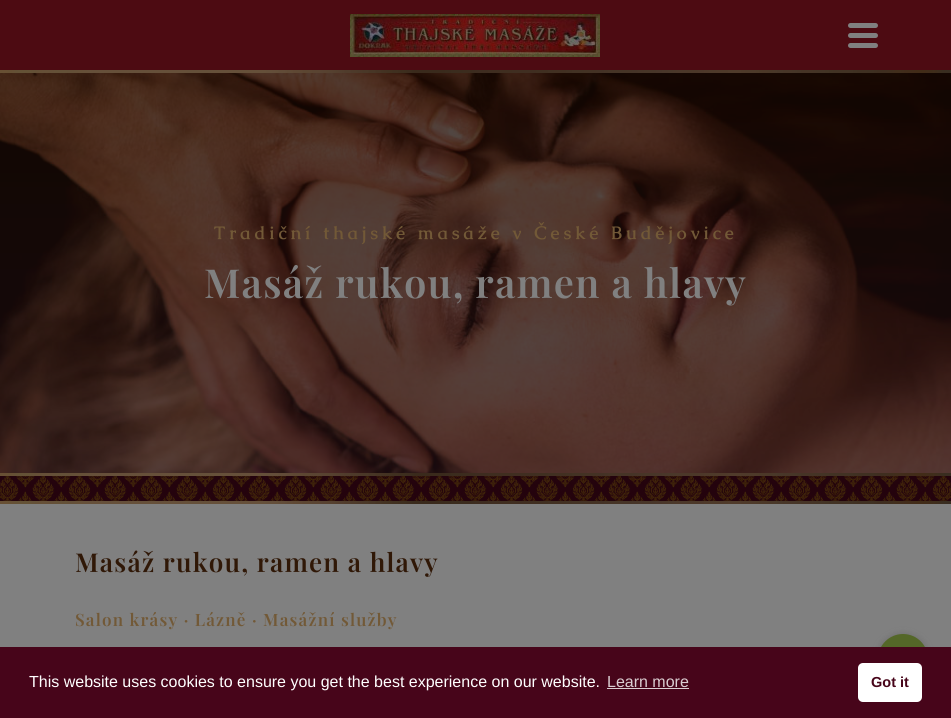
import math
import cairocffi as cairo

surface = cairo.ImageSurface(cairo.FORMAT_RGB24, 951, 718)
ctx = cairo.Context(surface)
options = cairo.FontOptions()
options.set_hint_metrics(cairo.HINT_METRICS_OFF)
options.set_hint_style(cairo.HINT_STYLE_NONE)
ctx.set_font_options(options)
ctx.set_miter_limit(4)


def rgb(r, g, b):
    ctx.set_source_rgb(r / 255, g / 255, b / 255)


def face(family, size, italic, bold):
    ctx.select_font_face(family, cairo.FONT_SLANT_ITALIC if italic else cairo.FONT_SLANT_NORMAL, cairo.FONT_WEIGHT_BOLD if bold else cairo.FONT_WEIGHT_NORMAL)
    ctx.set_font_size(size)


def label(x, y, s):
    ctx.move_to(x, y)
    ctx.show_text(s)


def tracked(x, y, s, letter, word):
    ctx.move_to(x, y)
    for ch in s:
        ctx.show_text(ch)
        ctx.rel_move_to(letter + word * (ch == ' '), 0)


def rect(x, y, w, h):
    ctx.rectangle(x, y, w, h)
    ctx.fill()


def rrect(x, y, w, h, r):
    ctx.new_sub_path()
    for i, (u, v) in enumerate([(x + w - r, y + h - r), (x + r, y + h - r), (x + r, y + r), (x + w - r, y + r)]):
        ctx.arc(u, v, r, i * math.pi / 2, (i + 1) * math.pi / 2)
    ctx.close_path()


def soft_shadow(x, y, w, h, r, blur, alpha):
    ctx.push_group_with_content(cairo.CONTENT_ALPHA)
    ctx.set_operator(cairo.OPERATOR_SOURCE)
    for i in range(15, -16, -2):
        e = blur * i / 6
        if min(w, h) + 2 * e > 0:
            ctx.set_source_rgba(0, 0, 0, alpha * math.erfc((i - 1) / 8.5) / 2)
            rrect(x - e, y - e, w + 2 * e, h + 2 * e, max(0, min(r + e + blur * .6, min(w, h) / 2 + e)))
            ctx.fill()
    ctx.mask(ctx.pop_group())


def image(path, x, y, w, h):
    ctx.save()
    ctx.set_source_surface(cairo.ImageSurface.create_from_png(path), x, y)
    ctx.rectangle(x, y, w, h)
    ctx.fill()
    ctx.restore()


rgb(128, 128, 128)
ctx.paint()
rgb(77, 11, 18)
rect(0, 0, 951, 70)
image('image0.png', 350, 14, 250, 43)
rgb(128, 128, 128)
rrect(848, 23, 30, 5, 2.5)
ctx.fill()
rrect(848, 33, 30, 5, 2.5)
ctx.fill()
rrect(848, 43, 30, 5, 2.5)
ctx.fill()
image('image1.png', 0, 70, 951, 3)
image('image2.png', 0, 73, 951, 400)
face('Caudex', 18, 0, 1)
rgb(114, 89, 55)
tracked(214, 239, 'Tradiční thajské masáže v České Budějovice', 4, 0)
face('Playfair Display SemiBold', 40, 0, 0)
rgb(128, 128, 128)
tracked(204, 298, 'Masáž rukou, ramen a hlavy', 1.2, 0)
image('image1.png', 0, 473, 951, 3)
image('image3.png', 0, 476, 951, 25)
image('image1.png', 0, 501, 951, 3)
face('Playfair Display SemiBold', 26, 0, 0)
rgb(48, 24, 7)
tracked(75, 572, 'Masáž rukou, ramen a hlavy', 1.2, 0)
face('Playfair Display SemiBold', 17, 0, 0)
rgb(114, 89, 55)
tracked(75, 626, 'Salon krásy · Lázně · Masážní služby', 1.2, 0)
rgb(68, 68, 68)
soft_shadow(878, 635, 50, 50, 25, 3.5, 0.4)
rgb(84, 103, 40)
ctx.arc(903, 659, 25, 0, 2 * math.pi)
ctx.fill()
rgb(71, 5, 26)
rect(0, 647, 951, 71)
face('Liberation Sans', 16, 0, 0)
rgb(255, 255, 255)
label(29, 687, 'This website uses cookies to ensure you get the best experience on our website.')
rgb(218, 205, 209)
label(607, 687, 'Learn more')
rect(607, 688, 82, 1)
rgb(255, 255, 255)
rrect(858, 663, 64, 39, 5)
ctx.fill()
face('Liberation Sans', 14.5, 0, 1)
rgb(71, 5, 26)
label(871, 687, 'Got it')
surface.write_to_png('render.png')
